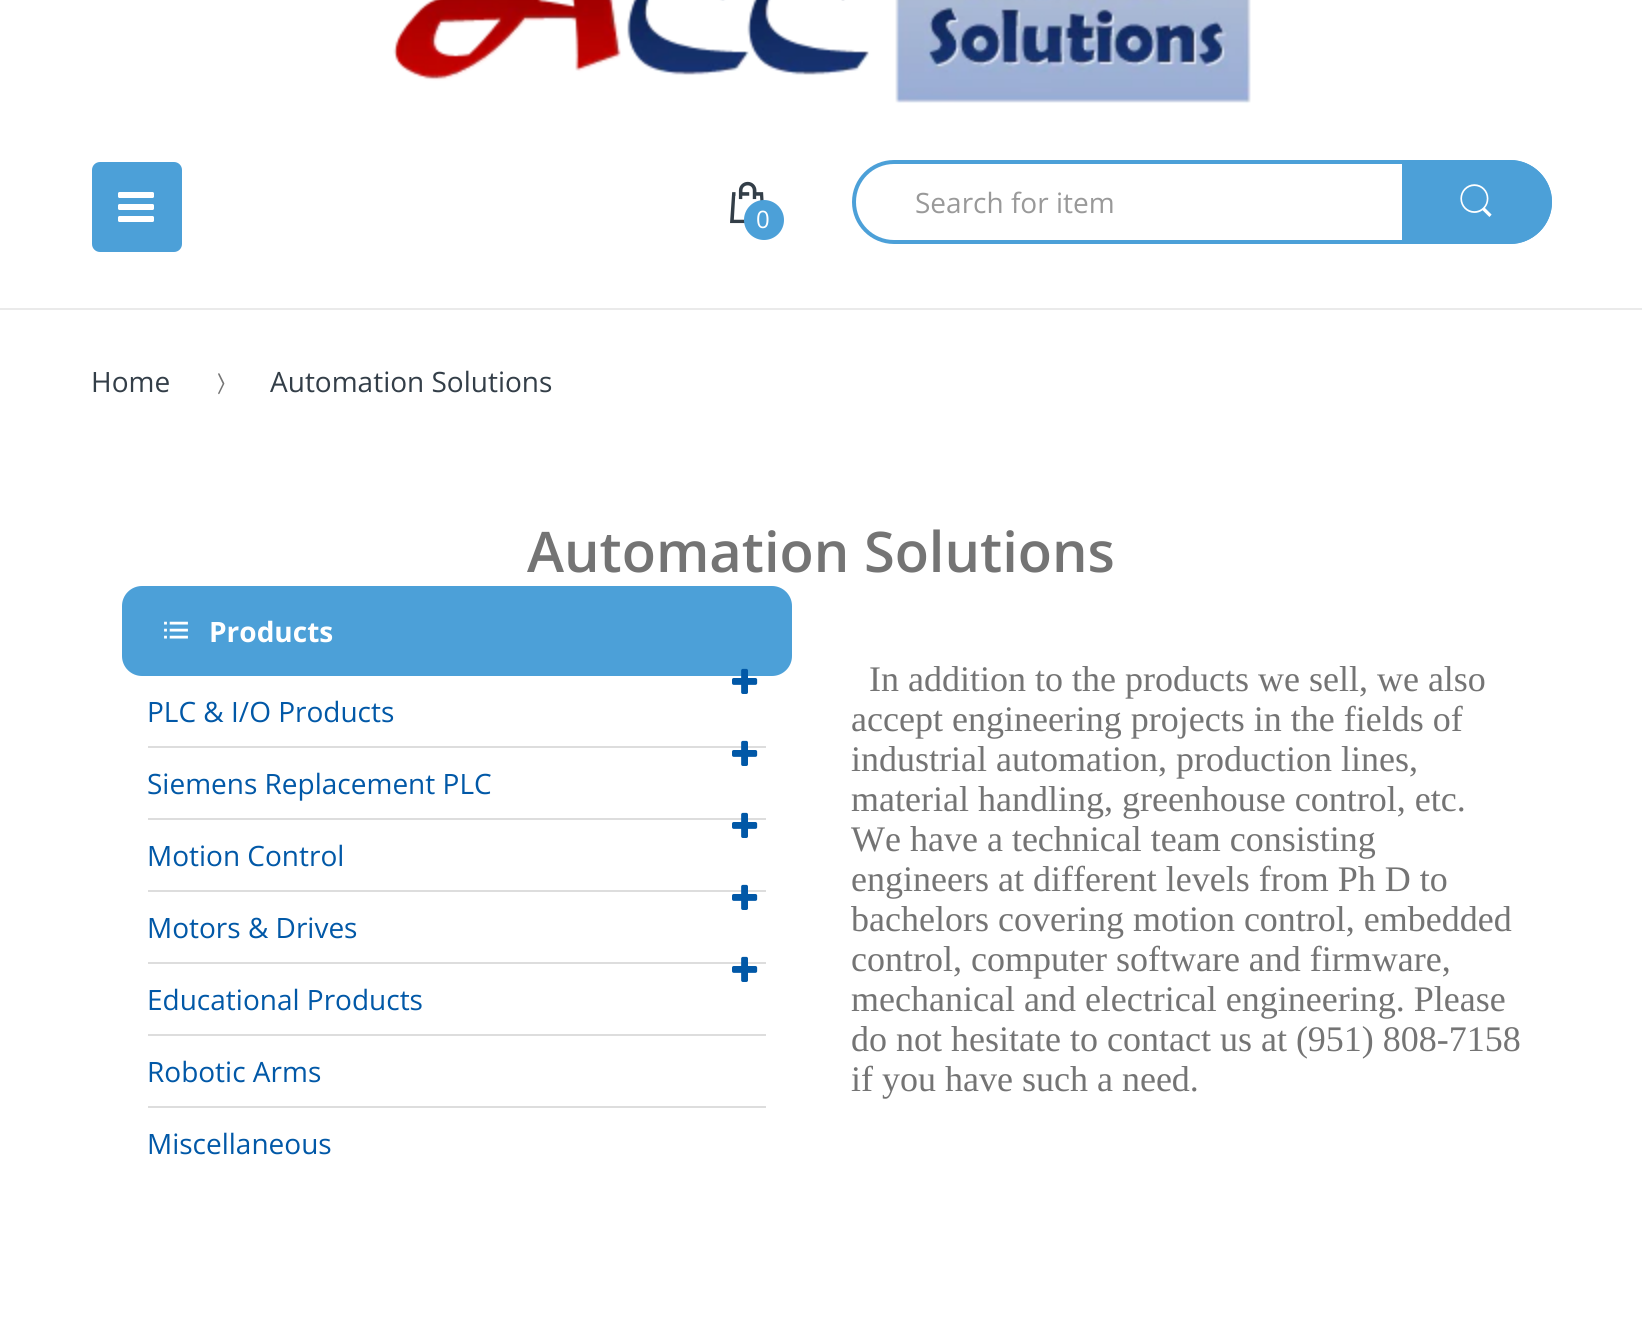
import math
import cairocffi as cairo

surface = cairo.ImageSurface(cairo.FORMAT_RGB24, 1642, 1333)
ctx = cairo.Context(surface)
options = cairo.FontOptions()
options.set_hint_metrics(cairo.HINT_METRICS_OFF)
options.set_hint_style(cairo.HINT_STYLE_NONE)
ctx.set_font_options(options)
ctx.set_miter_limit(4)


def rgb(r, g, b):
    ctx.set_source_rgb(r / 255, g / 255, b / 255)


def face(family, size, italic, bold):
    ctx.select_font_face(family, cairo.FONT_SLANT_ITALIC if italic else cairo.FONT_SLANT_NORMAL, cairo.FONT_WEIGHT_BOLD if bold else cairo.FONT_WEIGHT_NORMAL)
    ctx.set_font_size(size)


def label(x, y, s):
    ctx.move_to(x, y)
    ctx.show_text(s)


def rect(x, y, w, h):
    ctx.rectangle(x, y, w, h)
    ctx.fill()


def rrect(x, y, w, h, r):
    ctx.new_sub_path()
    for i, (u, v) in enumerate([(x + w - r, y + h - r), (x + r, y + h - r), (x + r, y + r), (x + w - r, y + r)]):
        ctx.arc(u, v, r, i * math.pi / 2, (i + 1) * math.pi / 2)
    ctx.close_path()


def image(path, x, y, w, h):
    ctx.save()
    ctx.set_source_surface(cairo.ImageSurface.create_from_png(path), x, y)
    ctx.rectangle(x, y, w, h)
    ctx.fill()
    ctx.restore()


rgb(255, 255, 255)
ctx.paint()
image('image0.png', 393, 0, 858, 104)
rrect(854, 162, 696, 80, 40)
rgb(76, 160, 216)
ctx.set_line_width(4)
ctx.stroke()
face('Open Sans', 28, 0, 0)
rgb(153, 153, 153)
label(915, 213, 'Search for item')
rgb(76, 160, 216)
ctx.new_path()
ctx.move_to(1402, 160)
ctx.line_to(1510, 160)
ctx.curve_to(1533, 160, 1552, 179, 1552, 202)
ctx.curve_to(1552, 225, 1533, 244, 1510, 244)
ctx.line_to(1402, 244)
ctx.close_path()
ctx.fill()
image('image1.png', 1460, 184, 32, 33)
rrect(92, 162, 90, 90, 8)
ctx.fill()
image('image2.png', 118, 192, 36, 30)
image('image3.png', 730, 181, 34, 43)
ctx.arc(764, 220, 20, 0, 2 * math.pi)
ctx.fill()
face('Open Sans', 24, 0, 0)
rgb(255, 255, 255)
label(756, 228, '0')
rgb(234, 234, 234)
rect(0, 308, 1642, 2)
face('Open Sans', 28, 0, 0)
rgb(51, 62, 72)
label(91, 392, 'Home')
image('image4.png', 218, 373, 7, 22)
label(270, 392, 'Automation Solutions')
face('Open Sans SemiBold', 56, 0, 0)
rgb(116, 116, 116)
label(527, 572, 'Automation Solutions')
rgb(76, 160, 216)
rrect(122, 586, 670, 90, 20)
ctx.fill()
image('image5.png', 164, 621, 24, 18)
face('Open Sans', 28, 0, 1)
rgb(255, 255, 255)
label(209, 642, 'Products')
image('image6.png', 732, 668, 26, 26)
rgb(221, 221, 221)
rect(148, 746, 618, 2)
face('Open Sans', 28, 0, 0)
rgb(1, 88, 167)
label(147, 722, 'PLC & I/O Products')
image('image7.png', 732, 740, 26, 26)
rgb(221, 221, 221)
rect(148, 818, 618, 2)
rgb(1, 88, 167)
label(147, 794, 'Siemens Replacement PLC')
image('image7.png', 732, 812, 26, 26)
rgb(221, 221, 221)
rect(148, 890, 618, 2)
rgb(1, 88, 167)
label(147, 866, 'Motion Control')
image('image7.png', 732, 884, 26, 26)
rgb(221, 221, 221)
rect(148, 962, 618, 2)
rgb(1, 88, 167)
label(147, 938, 'Motors & Drives')
image('image7.png', 732, 956, 26, 26)
rgb(221, 221, 221)
rect(148, 1034, 618, 2)
rgb(1, 88, 167)
label(147, 1010, 'Educational Products')
rgb(221, 221, 221)
rect(148, 1106, 618, 2)
rgb(1, 88, 167)
label(147, 1082, 'Robotic Arms')
label(147, 1154, 'Miscellaneous')
face('Liberation Serif', 36, 0, 0)
rgb(116, 116, 116)
label(869, 691, 'In addition to the products we sell, we also')
label(851, 731, 'accept engineering projects in the fields of')
label(851, 771, 'industrial automation, production lines,')
label(851, 811, 'material handling, greenhouse control, etc.')
label(851, 851, 'We have a technical team consisting')
label(851, 891, 'engineers at different levels from Ph D to')
label(851, 931, 'bachelors covering motion control, embedded')
label(851, 971, 'control, computer software and firmware,')
label(851, 1011, 'mechanical and electrical engineering. Please')
label(851, 1051, 'do not hesitate to contact us at (951) 808-7158')
label(851, 1091, 'if you have such a need.')
surface.write_to_png('render.png')
